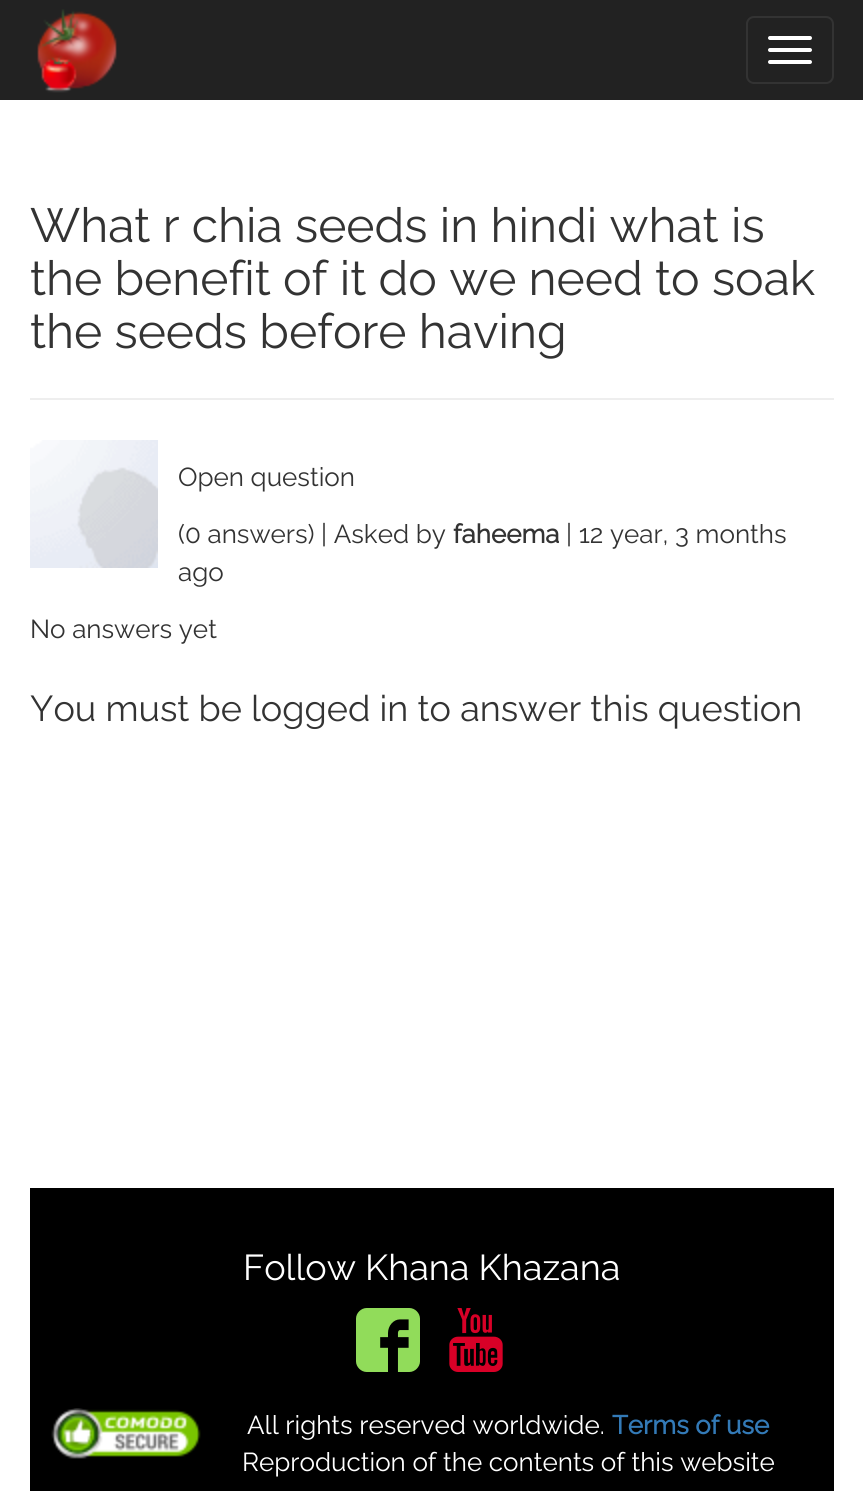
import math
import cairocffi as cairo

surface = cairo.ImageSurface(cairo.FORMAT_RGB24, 863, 1491)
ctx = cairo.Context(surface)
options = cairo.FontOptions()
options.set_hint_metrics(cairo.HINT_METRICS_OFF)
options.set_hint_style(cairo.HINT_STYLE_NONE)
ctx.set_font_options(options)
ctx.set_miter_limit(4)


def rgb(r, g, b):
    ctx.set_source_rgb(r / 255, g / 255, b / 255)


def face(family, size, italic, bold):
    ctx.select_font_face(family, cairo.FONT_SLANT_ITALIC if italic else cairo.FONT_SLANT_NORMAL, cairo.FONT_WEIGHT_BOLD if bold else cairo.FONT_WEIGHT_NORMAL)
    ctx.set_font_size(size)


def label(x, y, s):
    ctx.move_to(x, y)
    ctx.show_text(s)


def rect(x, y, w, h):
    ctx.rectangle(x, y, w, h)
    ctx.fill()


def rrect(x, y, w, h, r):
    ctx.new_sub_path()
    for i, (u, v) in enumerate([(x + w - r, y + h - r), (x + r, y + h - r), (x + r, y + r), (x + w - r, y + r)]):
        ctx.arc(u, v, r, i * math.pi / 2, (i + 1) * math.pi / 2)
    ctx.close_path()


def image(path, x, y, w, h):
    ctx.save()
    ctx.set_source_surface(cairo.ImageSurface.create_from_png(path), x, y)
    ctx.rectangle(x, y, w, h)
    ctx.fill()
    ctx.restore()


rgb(255, 255, 255)
ctx.paint()
rgb(34, 34, 34)
rect(0, 0, 863, 100)
image('image0.png', 37, 9, 80, 84)
rrect(747, 17, 86, 66, 7)
rgb(51, 51, 51)
ctx.stroke()
rgb(255, 255, 255)
rrect(768, 36, 44, 4, 2)
ctx.fill()
rrect(768, 48, 44, 4, 2)
ctx.fill()
rrect(768, 60, 44, 4, 2)
ctx.fill()
face('Raleway Thin', 48, 0, 0)
rgb(51, 51, 51)
label(30, 242, 'What r chia seeds in hindi what is')
label(30, 295, 'the benefit of it do we need to soak')
label(30, 348, 'the seeds before having')
rgb(238, 238, 238)
rect(30, 398, 804, 2)
image('image1.png', 30, 440, 128, 128)
face('Raleway Thin', 26, 0, 0)
rgb(51, 51, 51)
label(178, 486, 'Open question')
label(178, 543, '(0 answers) | Asked by')
face('Raleway', 26, 0, 1)
label(453, 543, 'faheema')
face('Raleway Thin', 26, 0, 0)
label(566, 543, '| 12 year, 3 months')
label(178, 581, 'ago')
label(30, 638, 'No answers yet')
face('Raleway Thin', 36, 0, 0)
label(30, 721, 'You must be logged in to answer this question')
rgb(0, 0, 0)
rect(30, 1188, 804, 303)
rgb(255, 255, 255)
label(243, 1280, 'Follow Khana Khazana')
image('image2.png', 356, 1308, 64, 64)
image('image3.png', 449, 1308, 54, 64)
image('image4.png', 51, 1408, 150, 51)
face('Raleway Thin', 26, 0, 0)
label(247, 1434, 'All rights reserved worldwide.')
face('Raleway', 26, 0, 1)
rgb(51, 122, 183)
label(612, 1434, 'Terms of use')
face('Raleway Thin', 26, 0, 0)
rgb(255, 255, 255)
label(242, 1471, 'Reproduction of the contents of this website')
surface.write_to_png('render.png')
